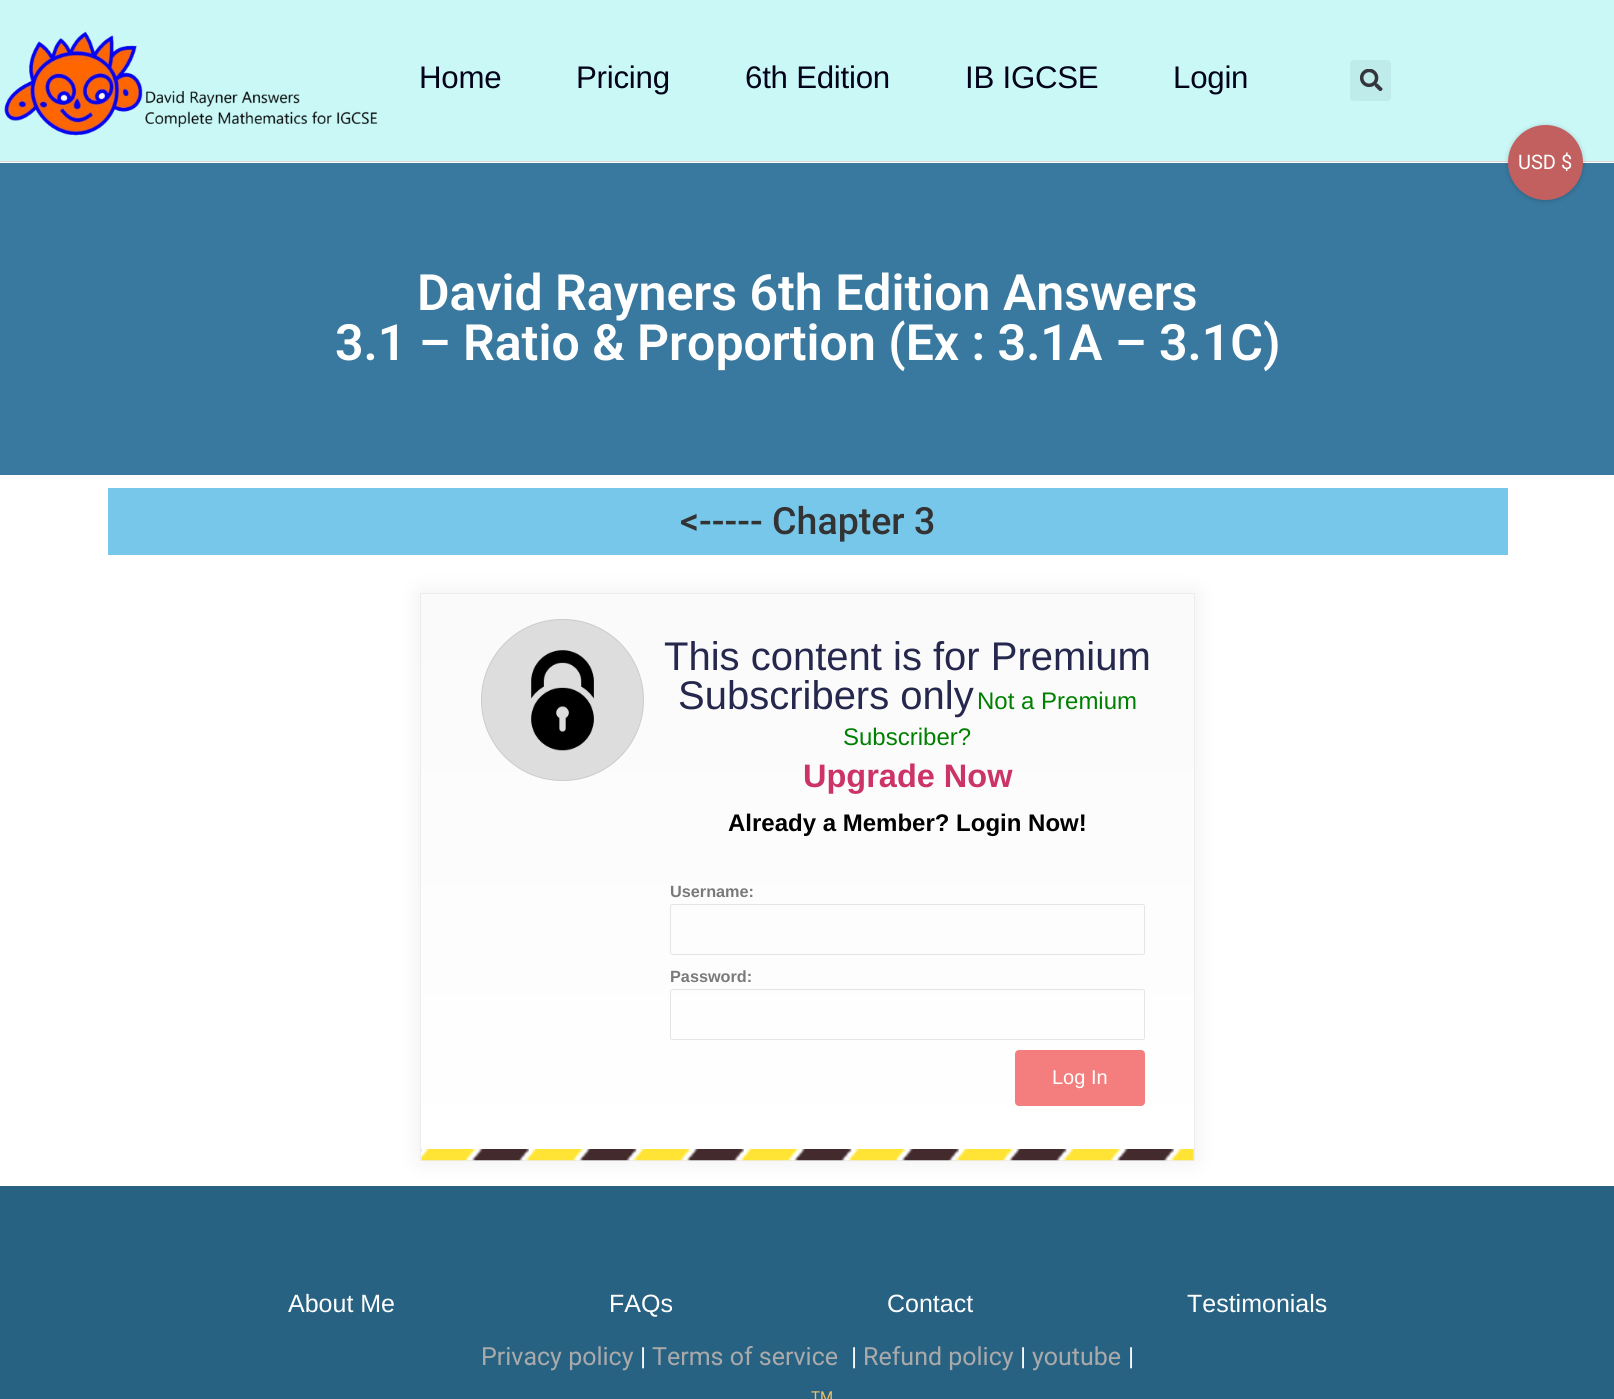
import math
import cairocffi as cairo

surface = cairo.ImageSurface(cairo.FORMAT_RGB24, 1614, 1399)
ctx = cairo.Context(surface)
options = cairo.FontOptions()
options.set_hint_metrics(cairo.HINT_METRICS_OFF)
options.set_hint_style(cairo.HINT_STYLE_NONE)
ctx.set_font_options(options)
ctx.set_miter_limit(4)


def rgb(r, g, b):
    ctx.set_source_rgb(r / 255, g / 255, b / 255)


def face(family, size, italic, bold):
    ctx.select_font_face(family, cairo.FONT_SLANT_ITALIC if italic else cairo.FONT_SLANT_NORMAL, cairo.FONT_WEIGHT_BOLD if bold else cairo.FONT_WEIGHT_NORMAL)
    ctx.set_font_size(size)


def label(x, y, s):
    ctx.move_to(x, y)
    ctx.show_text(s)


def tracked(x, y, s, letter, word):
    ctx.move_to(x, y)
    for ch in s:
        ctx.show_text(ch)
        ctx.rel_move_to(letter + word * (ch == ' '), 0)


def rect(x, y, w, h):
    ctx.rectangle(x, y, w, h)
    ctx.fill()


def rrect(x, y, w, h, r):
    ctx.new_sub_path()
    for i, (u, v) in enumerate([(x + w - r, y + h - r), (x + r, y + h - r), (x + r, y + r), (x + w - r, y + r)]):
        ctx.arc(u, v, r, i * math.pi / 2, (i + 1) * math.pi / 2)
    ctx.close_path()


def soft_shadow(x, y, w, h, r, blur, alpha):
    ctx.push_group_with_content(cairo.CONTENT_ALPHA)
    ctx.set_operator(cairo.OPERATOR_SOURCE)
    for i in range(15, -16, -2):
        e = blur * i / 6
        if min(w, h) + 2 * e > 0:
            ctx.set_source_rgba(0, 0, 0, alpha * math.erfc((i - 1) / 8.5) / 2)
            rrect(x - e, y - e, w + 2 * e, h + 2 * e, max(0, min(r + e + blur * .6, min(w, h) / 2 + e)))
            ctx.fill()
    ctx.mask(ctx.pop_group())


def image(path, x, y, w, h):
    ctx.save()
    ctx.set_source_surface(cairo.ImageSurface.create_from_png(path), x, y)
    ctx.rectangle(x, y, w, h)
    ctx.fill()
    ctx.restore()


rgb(255, 255, 255)
ctx.paint()
rgb(201, 248, 247)
rect(0, 0, 1614, 161)
rgb(216, 216, 216)
rect(0, 161, 1614, 1)
image('image0.png', 4, 31, 374, 105)
face('Liberation Sans', 31.25, 0, 0)
rgb(2, 2, 25)
tracked(419, 88, 'Home', -0.25, 0)
tracked(576, 88, 'Pricing', -0.25, 0)
tracked(745, 88, '6th Edition', -0.25, 0)
tracked(965, 88, 'IB IGCSE', -0.25, 0)
tracked(1173, 88, 'Login', -0.25, 0)
rgb(191, 236, 235)
rrect(1350, 60, 41, 41, 4)
ctx.fill()
image('image1.png', 1360, 69, 23, 22)
rgb(57, 121, 159)
rect(0, 163, 1614, 312)
face('Roboto SemiBold', 50, 0, 0)
rgb(255, 255, 255)
label(417, 310, 'David Rayners 6th Edition Answers')
label(335, 360, '3.1 – Ratio & Proportion (Ex : 3.1A – 3.1C)')
rgb(0, 0, 0)
soft_shadow(1508, 126, 75, 75, 37.5, 2.5, 0.2)
rgb(194, 96, 96)
ctx.arc(1545.5, 162.5, 37.5, 0, 2 * math.pi)
ctx.fill()
face('Roboto', 20, 0, 0)
rgb(255, 255, 255)
label(1518, 169, 'USD $')
rgb(119, 199, 234)
rect(108, 488, 1400, 67)
face('Roboto Medium', 37.5, 0, 0)
rgb(51, 51, 51)
label(680, 534, '<----- Chapter 3')
rgb(0, 0, 0)
soft_shadow(420, 593, 775, 568, 0, 12.5, 0.07)
gradient = cairo.LinearGradient(808, 594, 808, 1160)
gradient.add_color_stop_rgba(0, 0.98, 0.98, 0.98, 1)
gradient.add_color_stop_rgba(1, 1, 1, 1, 1)
ctx.set_source(gradient)
rect(421, 594, 773, 566)
ctx.rectangle(420.5, 593.5, 774, 567)
rgb(237, 237, 237)
ctx.set_line_width(1)
ctx.stroke()
rgb(221, 221, 221)
rrect(481, 619, 163, 162, 81)
ctx.fill()
image('image2.png', 531, 650, 63, 101)
rrect(481.5, 619.5, 162, 161, 80.5)
ctx.set_source_rgba(0, 0, 0, 0.08)
ctx.stroke()
face('Liberation Sans', 40, 0, 0)
rgb(37, 39, 77)
label(664, 670, 'This content is for Premium')
label(678, 709, 'Subscribers only')
face('Liberation Sans', 24, 0, 0)
rgb(0, 128, 0)
label(977, 709, 'Not a Premium')
label(843, 745, 'Subscriber?')
face('Liberation Sans', 32.5, 0, 1)
rgb(204, 51, 102)
label(803, 787, 'Upgrade Now')
face('Liberation Sans', 24, 0, 1)
rgb(0, 0, 0)
label(728, 831, 'Already a Member? Login Now!')
face('Liberation Sans', 16.25, 0, 1)
rgb(122, 122, 122)
label(670, 897, 'Username:')
rrect(670.5, 904.5, 474, 50, 2)
rgb(229, 229, 229)
ctx.stroke()
rgb(122, 122, 122)
label(670, 982, 'Password:')
rrect(670.5, 989.5, 474, 50, 2)
rgb(229, 229, 229)
ctx.stroke()
rgb(244, 126, 126)
rrect(1015, 1050, 130, 56, 4)
ctx.fill()
face('Liberation Sans', 20, 0, 0)
rgb(255, 255, 255)
label(1052, 1084, 'Log In')
image('image3.png', 421, 1149, 773, 12)
rgb(40, 98, 131)
rect(0, 1186, 1614, 213)
face('Liberation Sans', 25, 0, 0)
rgb(255, 255, 255)
label(288, 1312, 'About Me')
label(609, 1312, 'FAQs')
label(887, 1312, 'Contact')
label(1187, 1312, 'Testimonials')
face('Roboto', 25, 0, 0)
rgb(170, 170, 170)
label(481, 1365, 'Privacy policy')
rgb(255, 255, 255)
label(640, 1365, '|')
rgb(170, 170, 170)
label(652, 1365, 'Terms of service')
rgb(255, 255, 255)
label(851, 1365, '|')
rgb(170, 170, 170)
label(863, 1365, 'Refund policy')
rgb(255, 255, 255)
label(1020, 1365, '|')
rgb(170, 170, 170)
label(1032, 1365, 'youtube')
rgb(255, 255, 255)
label(1128, 1365, '|')
face('Roboto', 15, 0, 0)
rgb(241, 192, 100)
label(811, 1402, 'TM')
surface.write_to_png('render.png')
